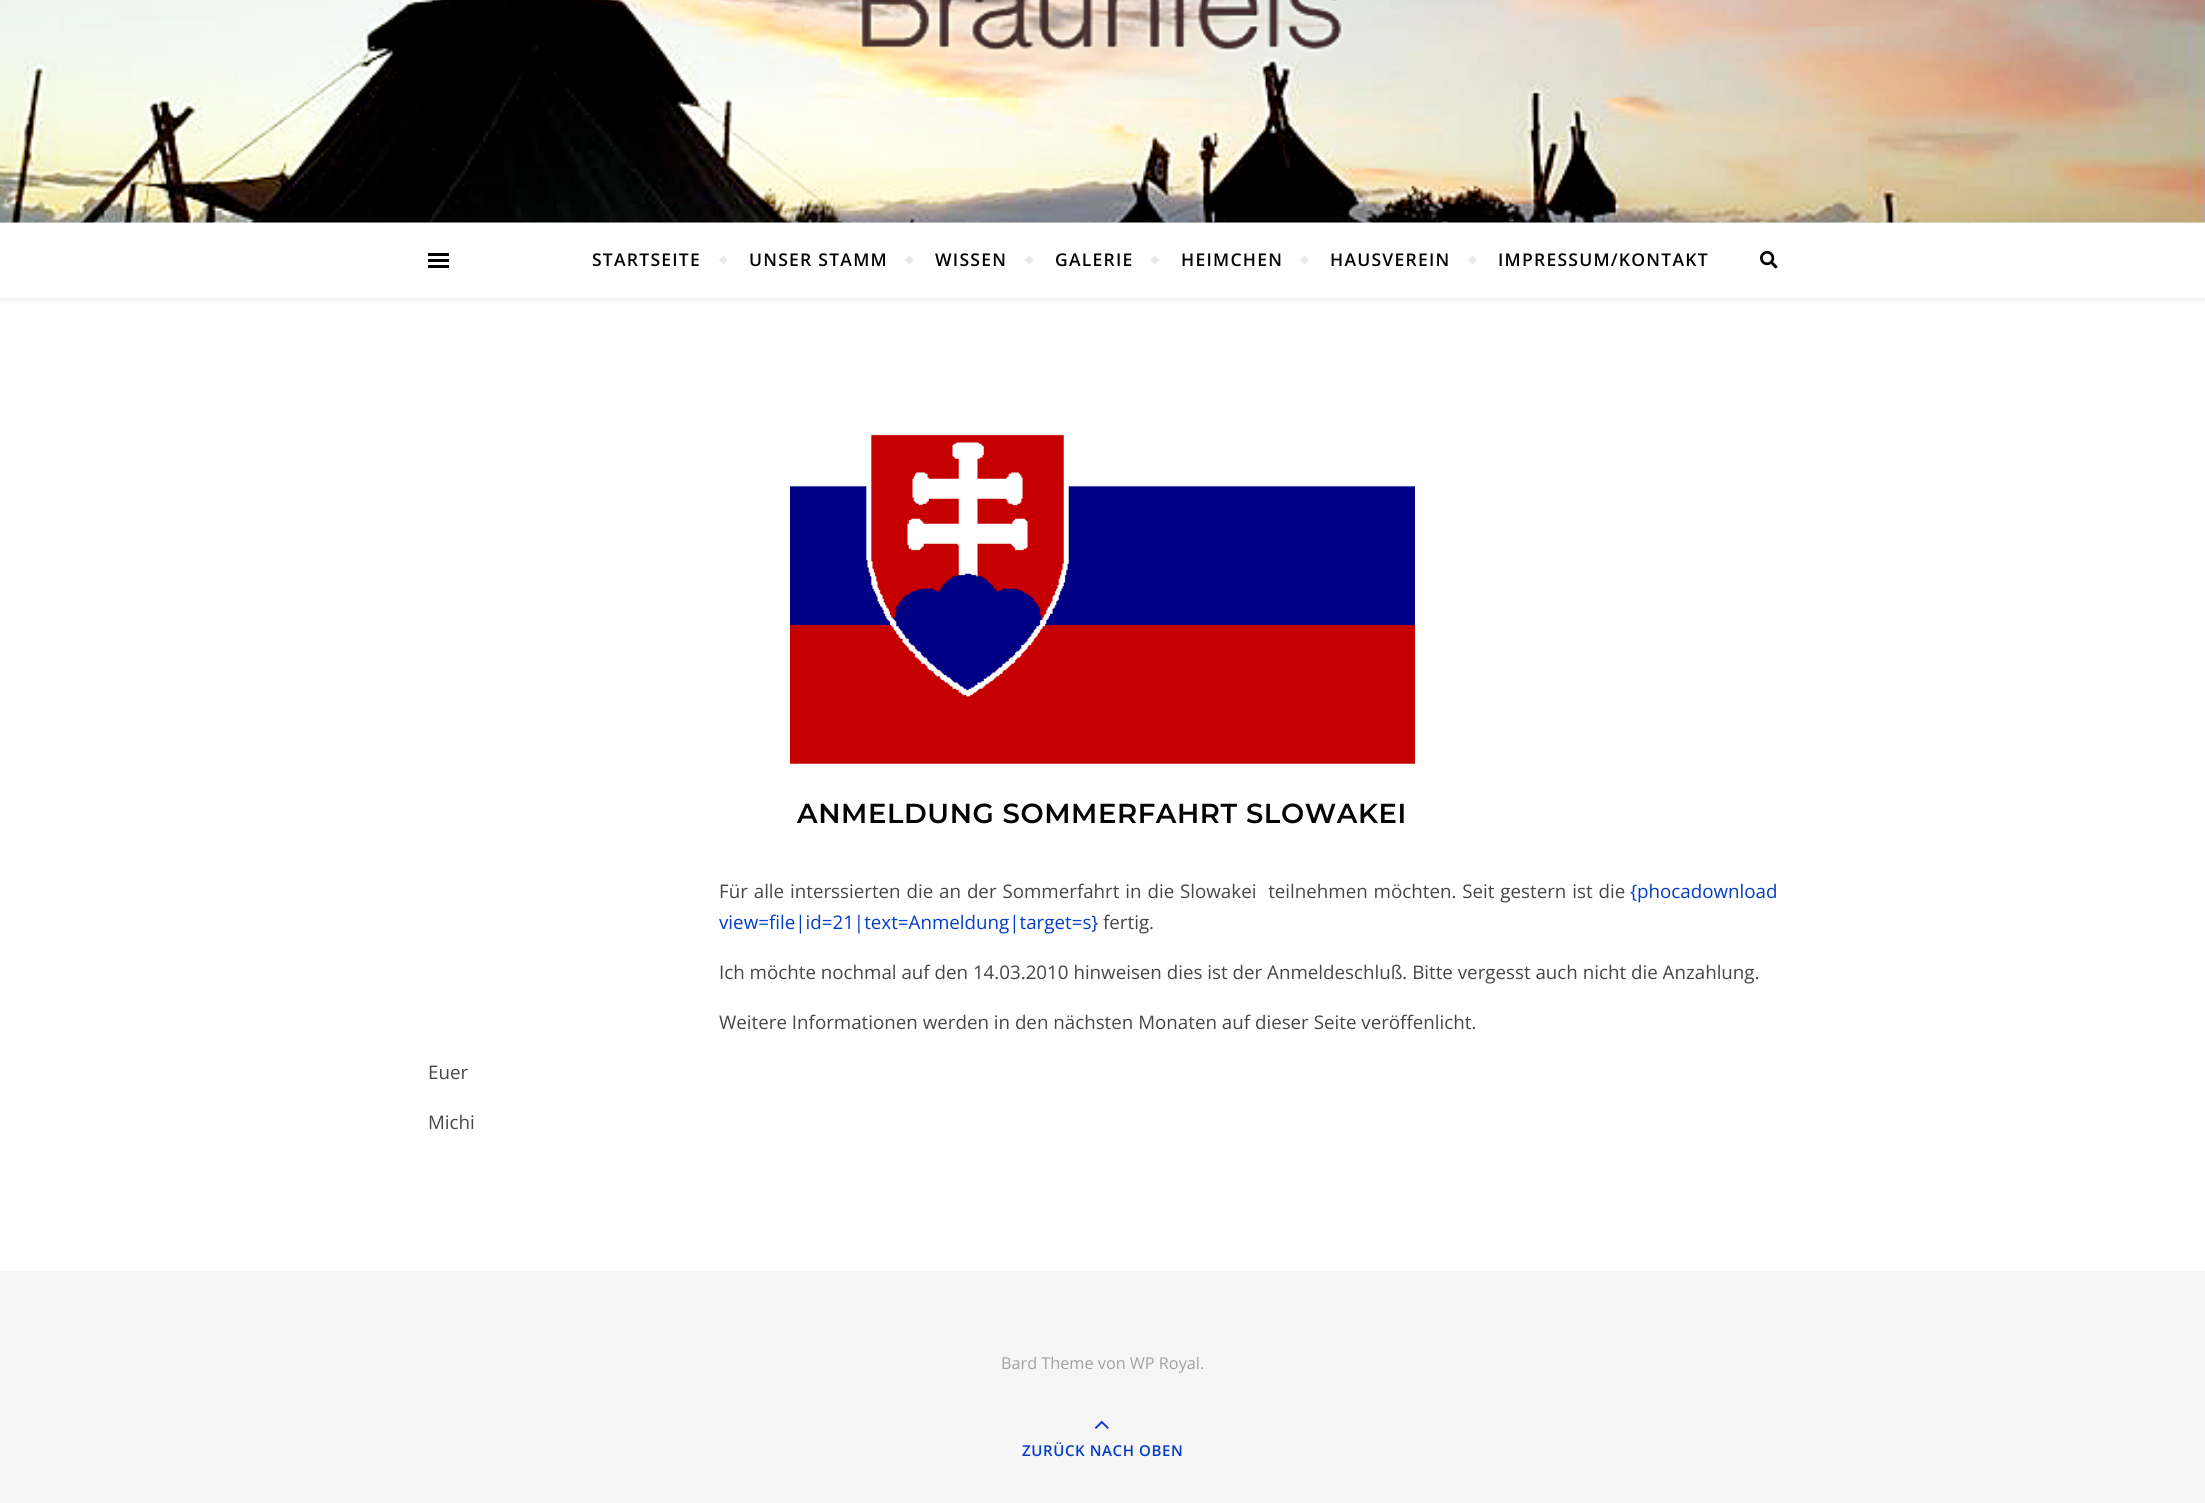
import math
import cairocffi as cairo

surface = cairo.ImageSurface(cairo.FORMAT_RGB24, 2205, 1503)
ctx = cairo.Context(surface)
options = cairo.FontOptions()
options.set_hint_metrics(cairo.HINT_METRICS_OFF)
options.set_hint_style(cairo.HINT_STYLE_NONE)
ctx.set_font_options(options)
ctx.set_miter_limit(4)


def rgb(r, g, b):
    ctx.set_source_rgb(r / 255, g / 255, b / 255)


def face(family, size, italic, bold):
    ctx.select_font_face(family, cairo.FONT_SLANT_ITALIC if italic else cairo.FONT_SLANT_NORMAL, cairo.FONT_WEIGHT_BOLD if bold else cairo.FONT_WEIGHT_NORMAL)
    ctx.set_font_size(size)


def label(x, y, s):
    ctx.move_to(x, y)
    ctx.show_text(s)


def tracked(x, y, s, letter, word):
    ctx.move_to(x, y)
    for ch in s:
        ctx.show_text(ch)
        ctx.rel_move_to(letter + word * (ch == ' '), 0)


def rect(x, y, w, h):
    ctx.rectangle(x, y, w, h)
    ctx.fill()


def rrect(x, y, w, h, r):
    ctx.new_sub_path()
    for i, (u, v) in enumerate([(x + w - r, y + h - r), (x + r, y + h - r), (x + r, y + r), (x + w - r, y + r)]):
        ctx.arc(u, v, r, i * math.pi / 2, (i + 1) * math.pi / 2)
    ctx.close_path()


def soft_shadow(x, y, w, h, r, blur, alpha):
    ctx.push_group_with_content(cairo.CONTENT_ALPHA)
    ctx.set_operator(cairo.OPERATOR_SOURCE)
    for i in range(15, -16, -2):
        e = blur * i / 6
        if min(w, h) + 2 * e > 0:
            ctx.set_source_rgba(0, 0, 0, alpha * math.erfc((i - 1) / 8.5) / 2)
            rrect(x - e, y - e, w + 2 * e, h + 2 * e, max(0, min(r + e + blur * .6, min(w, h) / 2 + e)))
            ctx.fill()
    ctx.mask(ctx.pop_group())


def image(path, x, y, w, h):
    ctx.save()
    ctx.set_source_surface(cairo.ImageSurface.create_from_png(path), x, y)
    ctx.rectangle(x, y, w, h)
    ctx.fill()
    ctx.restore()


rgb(255, 255, 255)
ctx.paint()
image('image0.png', 0, 0, 2205, 223)
rgb(0, 0, 0)
soft_shadow(0, 224, 2205, 75, 0, 3, 0.1)
rgb(255, 255, 255)
rect(0, 223, 2205, 75)
rgb(0, 0, 0)
rect(428, 253, 21, 3)
rect(428, 259, 21, 3)
rect(428, 265, 21, 3)
face('Open Sans SemiBold', 17.5, 0, 0)
rgb(3, 3, 3)
tracked(592, 266, 'STARTSEITE', 1.25, 0)
rgb(232, 232, 232)
ctx.new_path()
ctx.move_to(719, 260)
ctx.line_to(723.5, 255.5)
ctx.line_to(727.5, 260)
ctx.line_to(723.5, 264.5)
ctx.close_path()
ctx.fill()
rgb(3, 3, 3)
tracked(749, 266, 'UNSER STAMM', 1.25, 0)
rgb(232, 232, 232)
ctx.new_path()
ctx.move_to(905, 260)
ctx.line_to(909.5, 255.5)
ctx.line_to(914, 260)
ctx.line_to(909.5, 264.5)
ctx.close_path()
ctx.fill()
rgb(3, 3, 3)
tracked(935, 266, 'WISSEN', 1.25, 0)
rgb(232, 232, 232)
ctx.new_path()
ctx.move_to(1024.5, 260)
ctx.line_to(1029, 255.5)
ctx.line_to(1033.5, 260)
ctx.line_to(1029, 264.5)
ctx.close_path()
ctx.fill()
rgb(3, 3, 3)
tracked(1055, 266, 'GALERIE', 1.25, 0)
rgb(232, 232, 232)
ctx.new_path()
ctx.move_to(1150.5, 260)
ctx.line_to(1155, 255.5)
ctx.line_to(1159.5, 260)
ctx.line_to(1155, 264.5)
ctx.close_path()
ctx.fill()
rgb(3, 3, 3)
tracked(1181, 266, 'HEIMCHEN', 1.25, 0)
rgb(232, 232, 232)
ctx.new_path()
ctx.move_to(1300, 260)
ctx.line_to(1304.5, 255.5)
ctx.line_to(1309, 260)
ctx.line_to(1304.5, 264.5)
ctx.close_path()
ctx.fill()
rgb(3, 3, 3)
tracked(1330, 266, 'HAUSVEREIN', 1.25, 0)
rgb(232, 232, 232)
ctx.new_path()
ctx.move_to(1468, 260)
ctx.line_to(1472.5, 255.5)
ctx.line_to(1477, 260)
ctx.line_to(1472.5, 264.5)
ctx.close_path()
ctx.fill()
rgb(3, 3, 3)
tracked(1498, 266, 'IMPRESSUM/KONTAKT', 1.25, 0)
image('image1.png', 1760, 250, 18, 19)
image('image2.png', 790, 434, 625, 330)
face('Montserrat SemiBold', 27.5, 0, 0)
tracked(797, 823, 'ANMELDUNG SOMMERFAHRT SLOWAKEI', 0.6, 0)
face('Open Sans', 18.75, 0, 0)
rgb(70, 70, 70)
tracked(719, 898, 'Für alle interssierten die an der Sommerfahrt in die Slowakei  teilnehmen möchten. Seit gestern ist die', 0, 1)
rgb(0, 60, 201)
label(1630, 898, '{phocadownload')
label(719, 929, 'view=file|id=21|text=Anmeldung|target=s}')
rgb(70, 70, 70)
label(1103, 929, 'fertig.')
label(719, 979, 'Ich möchte nochmal auf den 14.03.2010 hinweisen dies ist der Anmeldeschluß. Bitte vergesst auch nicht die Anzahlung.')
label(719, 1029, 'Weitere Informationen werden in den nächsten Monaten auf dieser Seite veröffenlicht.')
label(428, 1079, 'Euer')
label(428, 1129, 'Michi')
rgb(246, 246, 246)
rect(0, 1271, 2205, 232)
face('Open Sans', 16.25, 0, 0)
rgb(161, 161, 161)
label(1001, 1369, 'Bard Theme von WP Royal.')
image('image3.png', 1094, 1420, 15, 9)
face('Open Sans SemiBold', 15, 0, 0)
rgb(0, 60, 201)
tracked(1022, 1456, 'ZURÜCK NACH OBEN', 0.6, 0)
surface.write_to_png('render.png')
